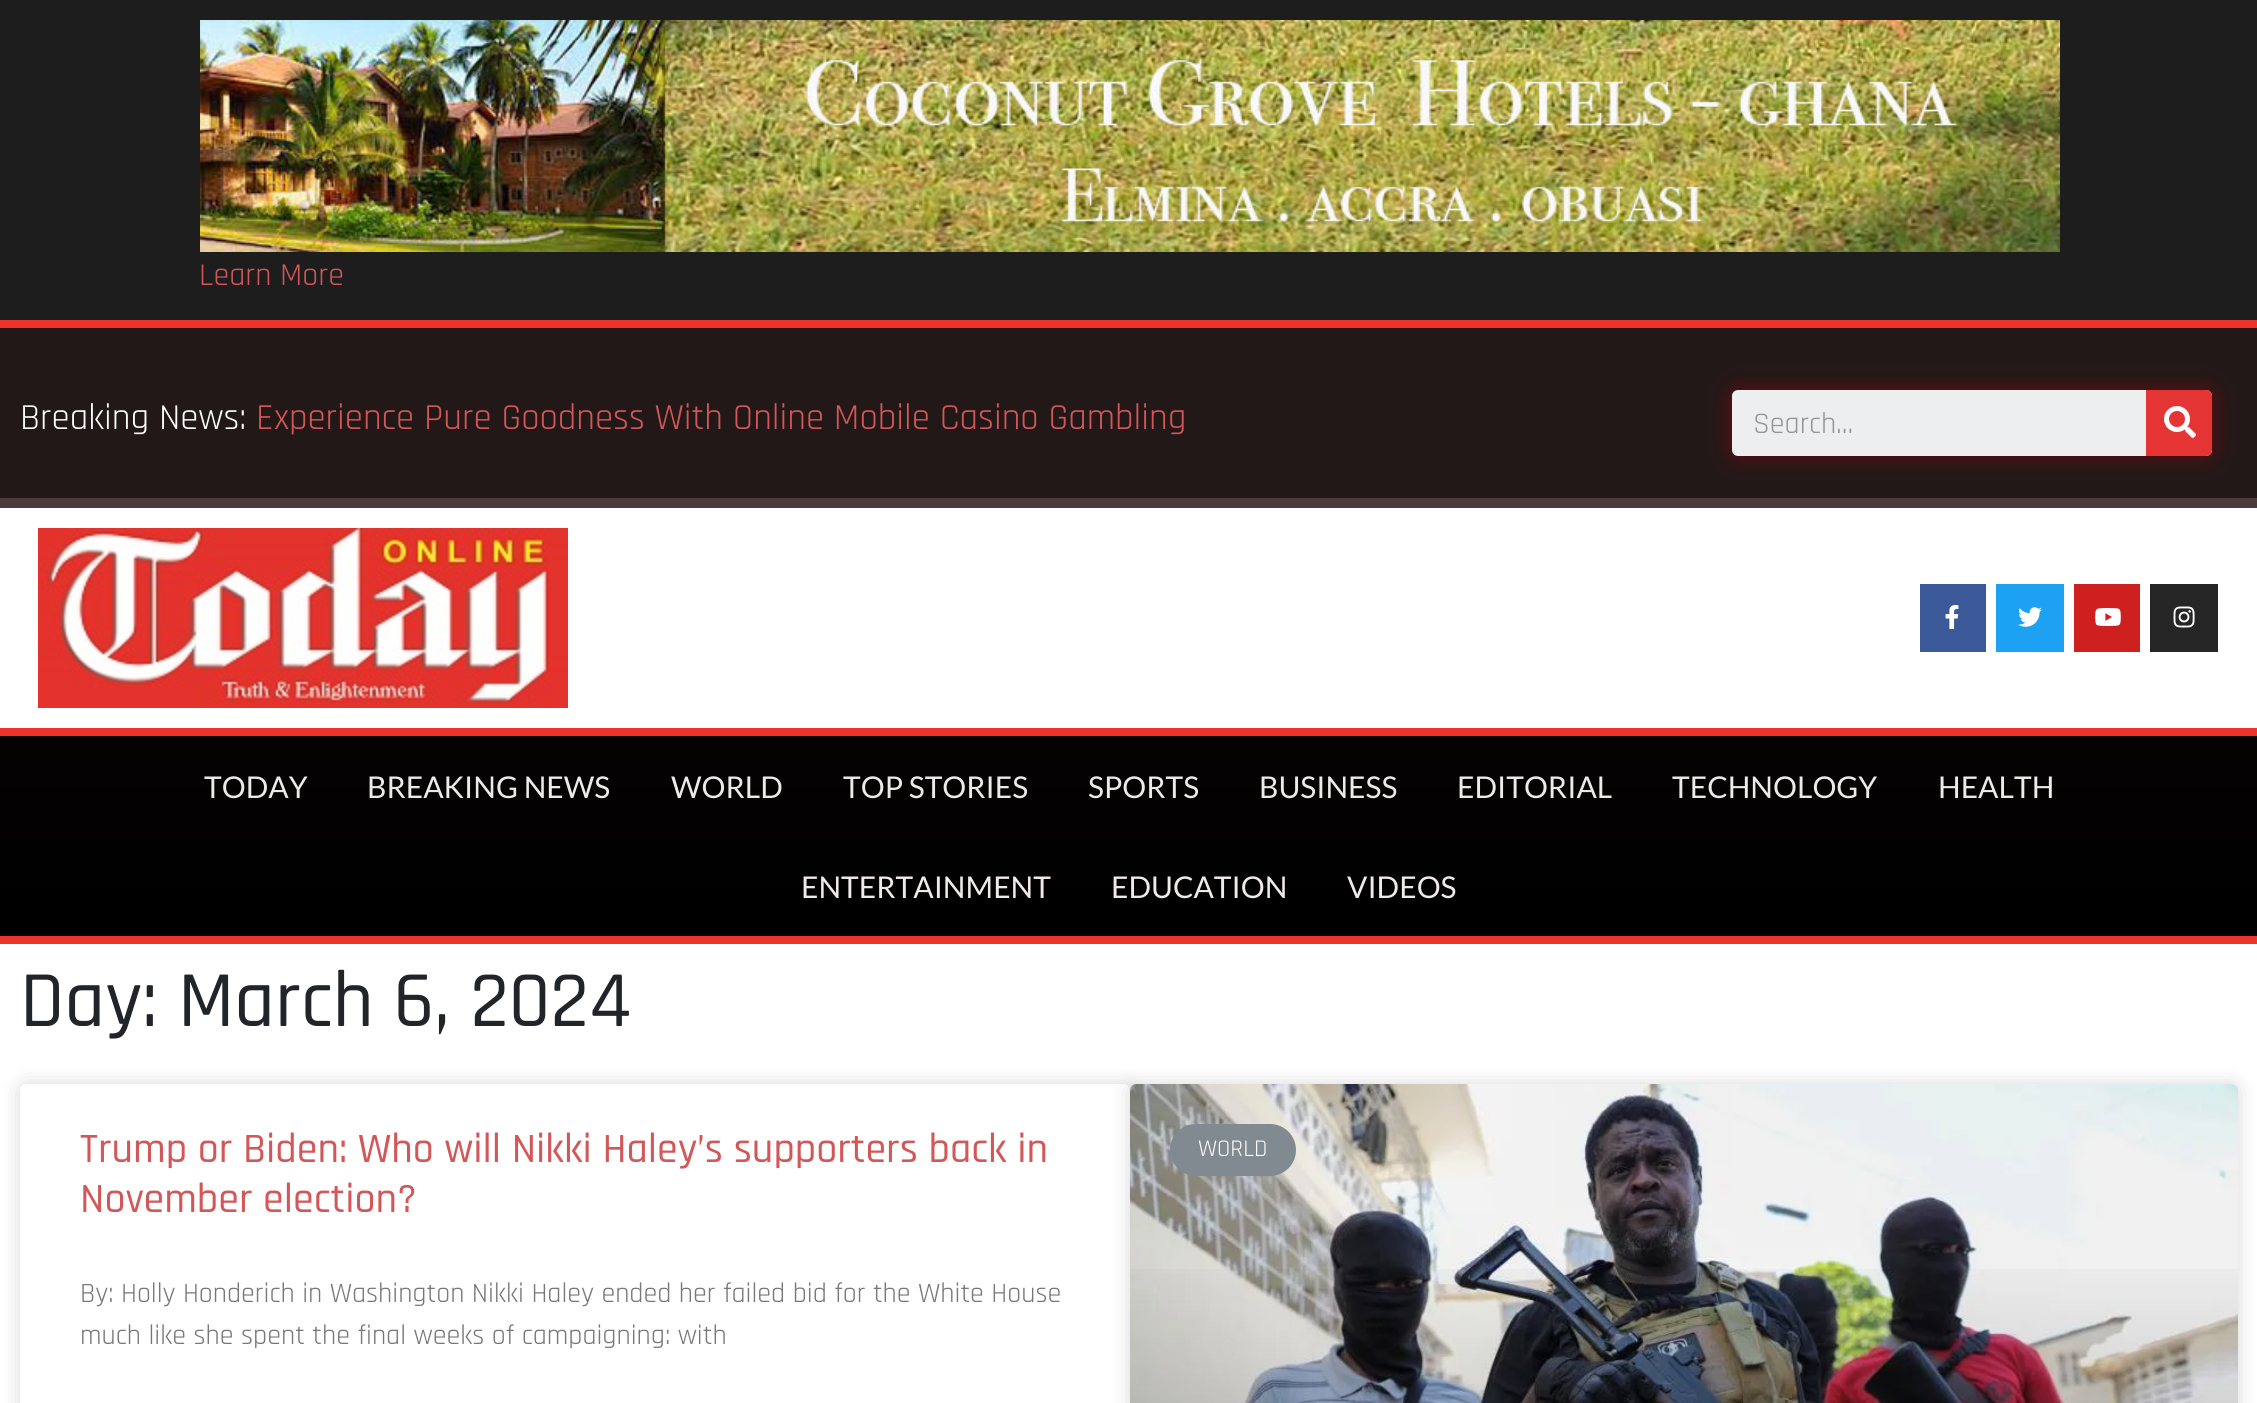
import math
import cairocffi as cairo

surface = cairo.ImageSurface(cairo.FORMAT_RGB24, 2257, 1403)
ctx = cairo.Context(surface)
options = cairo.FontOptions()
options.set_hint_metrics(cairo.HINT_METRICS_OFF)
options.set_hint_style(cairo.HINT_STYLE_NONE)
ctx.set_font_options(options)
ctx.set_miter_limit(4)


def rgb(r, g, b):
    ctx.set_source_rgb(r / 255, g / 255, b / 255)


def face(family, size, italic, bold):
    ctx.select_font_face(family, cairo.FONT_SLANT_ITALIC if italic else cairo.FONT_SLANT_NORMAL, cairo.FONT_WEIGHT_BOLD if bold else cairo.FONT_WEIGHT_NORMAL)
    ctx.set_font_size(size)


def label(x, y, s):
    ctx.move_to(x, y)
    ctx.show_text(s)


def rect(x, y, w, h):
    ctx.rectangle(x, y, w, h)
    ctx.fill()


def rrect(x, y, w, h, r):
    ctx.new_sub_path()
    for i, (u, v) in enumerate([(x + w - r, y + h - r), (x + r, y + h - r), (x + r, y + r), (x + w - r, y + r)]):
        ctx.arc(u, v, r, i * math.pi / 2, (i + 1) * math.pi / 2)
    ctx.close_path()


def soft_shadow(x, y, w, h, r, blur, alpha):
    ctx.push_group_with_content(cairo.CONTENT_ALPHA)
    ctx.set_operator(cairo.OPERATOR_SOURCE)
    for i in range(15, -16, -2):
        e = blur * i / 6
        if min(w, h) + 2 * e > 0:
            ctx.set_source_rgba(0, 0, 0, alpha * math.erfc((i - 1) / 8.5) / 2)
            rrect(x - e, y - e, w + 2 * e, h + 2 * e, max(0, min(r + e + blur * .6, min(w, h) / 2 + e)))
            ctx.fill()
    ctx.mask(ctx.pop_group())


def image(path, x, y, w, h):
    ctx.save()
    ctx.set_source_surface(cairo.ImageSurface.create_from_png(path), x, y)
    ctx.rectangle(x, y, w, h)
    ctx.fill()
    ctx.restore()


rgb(255, 255, 255)
ctx.paint()
rgb(30, 29, 29)
rect(0, 0, 2257, 320)
rgb(238, 51, 42)
rect(0, 320, 2257, 8)
image('image0.png', 200, 20, 1860, 232)
face('Rajdhani', 32, 0, 0)
rgb(211, 87, 88)
label(199, 285, 'Learn More')
rgb(35, 24, 24)
rect(0, 328, 2257, 170)
face('Rajdhani', 36.8, 0, 0)
rgb(255, 255, 255)
label(20, 429, 'Breaking News:')
rgb(211, 87, 88)
label(256, 429, 'Experience Pure Goodness With Online Mobile Casino Gambling')
rgb(128, 6, 11)
soft_shadow(1732, 390, 480, 66, 6, 10, 0.73)
rgb(236, 238, 239)
rrect(1732, 390, 480, 66, 6)
ctx.fill()
face('Rajdhani', 30, 0, 0)
rgb(145, 149, 151)
label(1753, 433, 'Search...')
rgb(228, 52, 52)
ctx.new_path()
ctx.move_to(2146, 390)
ctx.line_to(2206, 390)
ctx.curve_to(2209.5, 390, 2212, 392.5, 2212, 396)
ctx.line_to(2212, 450)
ctx.curve_to(2212, 453.5, 2209.5, 456, 2206, 456)
ctx.line_to(2146, 456)
ctx.close_path()
ctx.fill()
image('image1.png', 2164, 406, 32, 32)
rgb(74, 59, 58)
rect(0, 498, 2257, 10)
image('image2.png', 38, 528, 530, 180)
rgb(59, 89, 152)
rect(1920, 584, 66, 68)
image('image3.png', 1945, 605, 14, 24)
rgb(29, 161, 242)
rect(1996, 584, 68, 68)
image('image4.png', 2018, 607, 24, 20)
rgb(205, 32, 31)
rect(2074, 584, 66, 68)
image('image5.png', 2095, 608, 26, 18)
rgb(38, 38, 38)
rect(2150, 584, 68, 68)
image('image6.png', 2173, 606, 22, 22)
gradient = cairo.LinearGradient(1129, 736, 1129, 936)
gradient.add_color_stop_rgba(0, 0.02, 0.008, 0.008, 1)
gradient.add_color_stop_rgba(1, 0, 0, 0, 1)
ctx.set_source(gradient)
rect(0, 736, 2257, 200)
rgb(238, 51, 42)
rect(0, 728, 2257, 8)
rect(0, 936, 2257, 8)
face('Lato', 30, 0, 0)
rgb(239, 234, 234)
label(204, 798, 'TODAY')
label(367, 798, 'BREAKING NEWS')
label(671, 798, 'WORLD')
label(843, 798, 'TOP STORIES')
label(1088, 798, 'SPORTS')
label(1259, 798, 'BUSINESS')
label(1457, 798, 'EDITORIAL')
label(1672, 798, 'TECHNOLOGY')
label(1938, 798, 'HEALTH')
label(801, 898, 'ENTERTAINMENT')
label(1111, 898, 'EDUCATION')
label(1347, 898, 'VIDEOS')
face('Rajdhani Medium', 80, 0, 0)
rgb(33, 37, 41)
label(20, 1026, 'Day: March 6, 2024')
rgb(0, 0, 0)
soft_shadow(20, 1084, 1110, 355, 6, 10, 0.15)
rgb(255, 255, 255)
rrect(20, 1084, 1110, 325, 6)
ctx.fill()
face('Rajdhani Medium', 42, 0, 0)
rgb(211, 87, 88)
label(80, 1162, 'Trump or Biden: Who will Nikki Haley’s supporters back in')
label(80, 1212, 'November election?')
face('Rajdhani', 28, 0, 0)
rgb(119, 119, 119)
label(80, 1302, 'By: Holly Honderich in Washington Nikki Haley ended her failed bid for the White House')
label(80, 1344, 'much like she spent the final weeks of campaigning: with')
rgb(0, 0, 0)
soft_shadow(1130, 1084, 1108, 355, 6, 10, 0.15)
image('image7.png', 1130, 1084, 1108, 319)
gradient = cairo.LinearGradient(1684, 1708, 1684, 1084)
gradient.add_color_stop_rgba(0, 0, 0, 0, 0.35)
gradient.add_color_stop_rgba(0.75, 0, 0, 0, 0)
ctx.set_source(gradient)
rect(1130, 1269, 1108, 134)
rgb(129, 138, 145)
rrect(1170, 1124, 126, 52, 26)
ctx.fill()
face('Rajdhani', 24, 0, 0)
rgb(255, 255, 255)
label(1198, 1156, 'WORLD')
surface.write_to_png('render.png')
